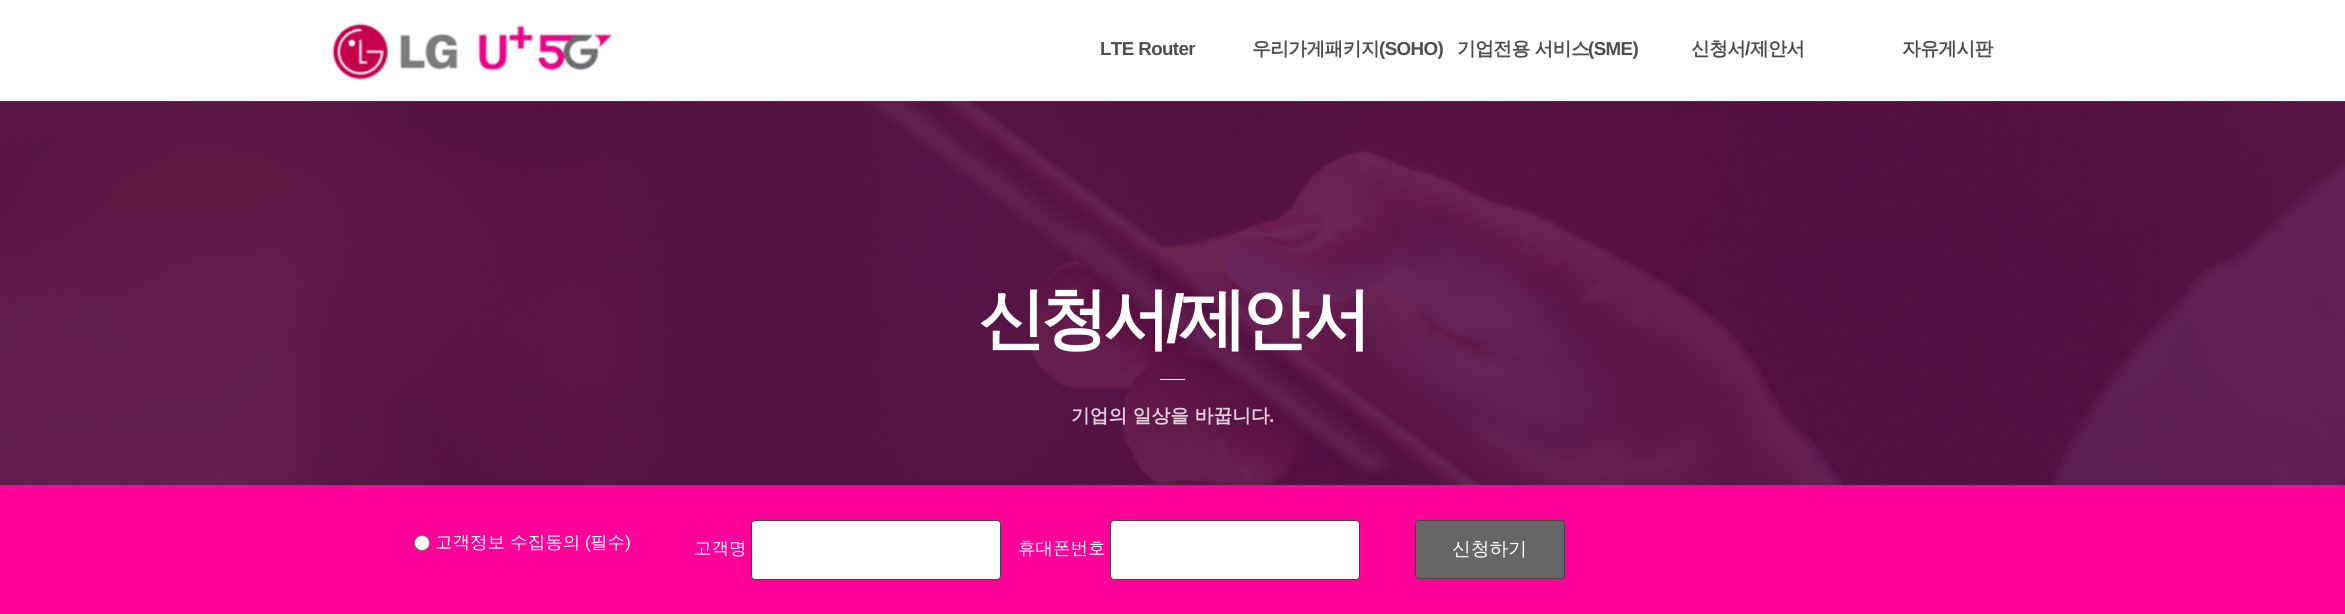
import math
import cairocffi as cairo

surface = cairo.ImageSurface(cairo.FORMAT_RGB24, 2345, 614)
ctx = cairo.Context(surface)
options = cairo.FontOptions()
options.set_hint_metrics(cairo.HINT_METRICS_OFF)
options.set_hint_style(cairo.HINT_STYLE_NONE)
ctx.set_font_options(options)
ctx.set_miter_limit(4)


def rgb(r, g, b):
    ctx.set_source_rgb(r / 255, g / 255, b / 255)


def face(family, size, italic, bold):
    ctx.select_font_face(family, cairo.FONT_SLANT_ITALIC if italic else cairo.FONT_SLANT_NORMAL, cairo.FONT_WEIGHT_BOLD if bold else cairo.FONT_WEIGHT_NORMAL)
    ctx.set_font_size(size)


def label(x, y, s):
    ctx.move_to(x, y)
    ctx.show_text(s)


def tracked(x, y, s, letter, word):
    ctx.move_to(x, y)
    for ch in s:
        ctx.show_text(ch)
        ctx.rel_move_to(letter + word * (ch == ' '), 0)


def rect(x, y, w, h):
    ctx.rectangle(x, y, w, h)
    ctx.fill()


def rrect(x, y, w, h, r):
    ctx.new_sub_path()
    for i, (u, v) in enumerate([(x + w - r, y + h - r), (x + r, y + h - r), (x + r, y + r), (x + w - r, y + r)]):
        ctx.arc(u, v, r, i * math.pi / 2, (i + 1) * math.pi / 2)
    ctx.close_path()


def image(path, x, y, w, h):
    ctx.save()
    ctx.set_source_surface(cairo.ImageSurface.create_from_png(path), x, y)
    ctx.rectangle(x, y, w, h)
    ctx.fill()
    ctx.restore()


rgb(255, 255, 255)
ctx.paint()
rgb(107, 40, 91)
rect(0, 101, 2345, 1)
image('image0.png', 331, 23, 282, 57)
face('Liberation Sans', 18.75, 0, 1)
rgb(78, 78, 78)
tracked(1100, 55, 'LTE Router', -0.6, 0)
face('WenQuanYi Zen Hei', 18.75, 0, 1)
tracked(1252, 55, '우리가게패키지', -0.6, 0)
face('Liberation Sans', 18.75, 0, 1)
tracked(1379, 55, '(SOHO)', -0.6, 0)
face('WenQuanYi Zen Hei', 18.75, 0, 1)
tracked(1457, 55, '기업전용 서비스', -0.6, 0)
face('Liberation Sans', 18.75, 0, 1)
tracked(1588, 55, '(SME)', -0.6, 0)
face('WenQuanYi Zen Hei', 18.75, 0, 1)
tracked(1691, 55, '신청서', -0.6, 0)
face('Liberation Sans', 18.75, 0, 1)
tracked(1745, 55, '/', -0.6, 0)
face('WenQuanYi Zen Hei', 18.75, 0, 1)
tracked(1750, 55, '제안서', -0.6, 0)
tracked(1902, 55, '자유게시판', -0.6, 0)
image('image1.png', 0, 101, 2345, 384)
face('WenQuanYi Zen Hei', 67.5, 0, 1)
rgb(255, 255, 255)
tracked(978, 342, '신청서', -5, 0)
face('Liberation Sans', 67.5, 0, 1)
tracked(1166, 342, '/', -5, 0)
face('WenQuanYi Zen Hei', 67.5, 0, 1)
tracked(1179, 342, '제안서', -5, 0)
rect(1160, 379, 25, 1)
face('WenQuanYi Zen Hei', 18.75, 0, 1)
rgb(223, 208, 218)
label(1071, 422, '기업의 일상을 바꿉니다')
face('Liberation Sans', 18.75, 0, 1)
label(1269, 422, '.')
rgb(255, 0, 153)
rect(0, 485, 2345, 129)
rgb(255, 255, 255)
ctx.new_path()
ctx.arc(422, 543, 7.5, 0, 2 * math.pi)
ctx.fill_preserve()
rgb(118, 118, 118)
ctx.set_line_width(1)
ctx.stroke()
face('WenQuanYi Zen Hei Medium', 17.5, 0, 0)
rgb(255, 255, 255)
label(435, 548, '고객정보 수집동의')
face('Liberation Sans', 17.5, 0, 0)
label(585, 548, '(')
face('WenQuanYi Zen Hei Medium', 17.5, 0, 0)
label(590, 548, '필수')
face('Liberation Sans', 17.5, 0, 0)
label(625, 548, ')')
face('WenQuanYi Zen Hei Medium', 17.5, 0, 0)
label(694, 554, '고객명')
rrect(751.5, 520.5, 249, 59, 3.5)
ctx.fill_preserve()
rgb(68, 68, 68)
ctx.stroke()
rgb(255, 255, 255)
label(1018, 554, '휴대폰번호')
rrect(1110.5, 520.5, 249, 59, 3.5)
ctx.fill_preserve()
rgb(68, 68, 68)
ctx.stroke()
rgb(102, 102, 102)
rrect(1415.5, 520.5, 149, 58, 3.5)
ctx.fill_preserve()
rgb(68, 68, 68)
ctx.stroke()
face('WenQuanYi Zen Hei Medium', 18.75, 0, 0)
rgb(255, 255, 255)
label(1452, 555, '신청하기')
surface.write_to_png('render.png')
